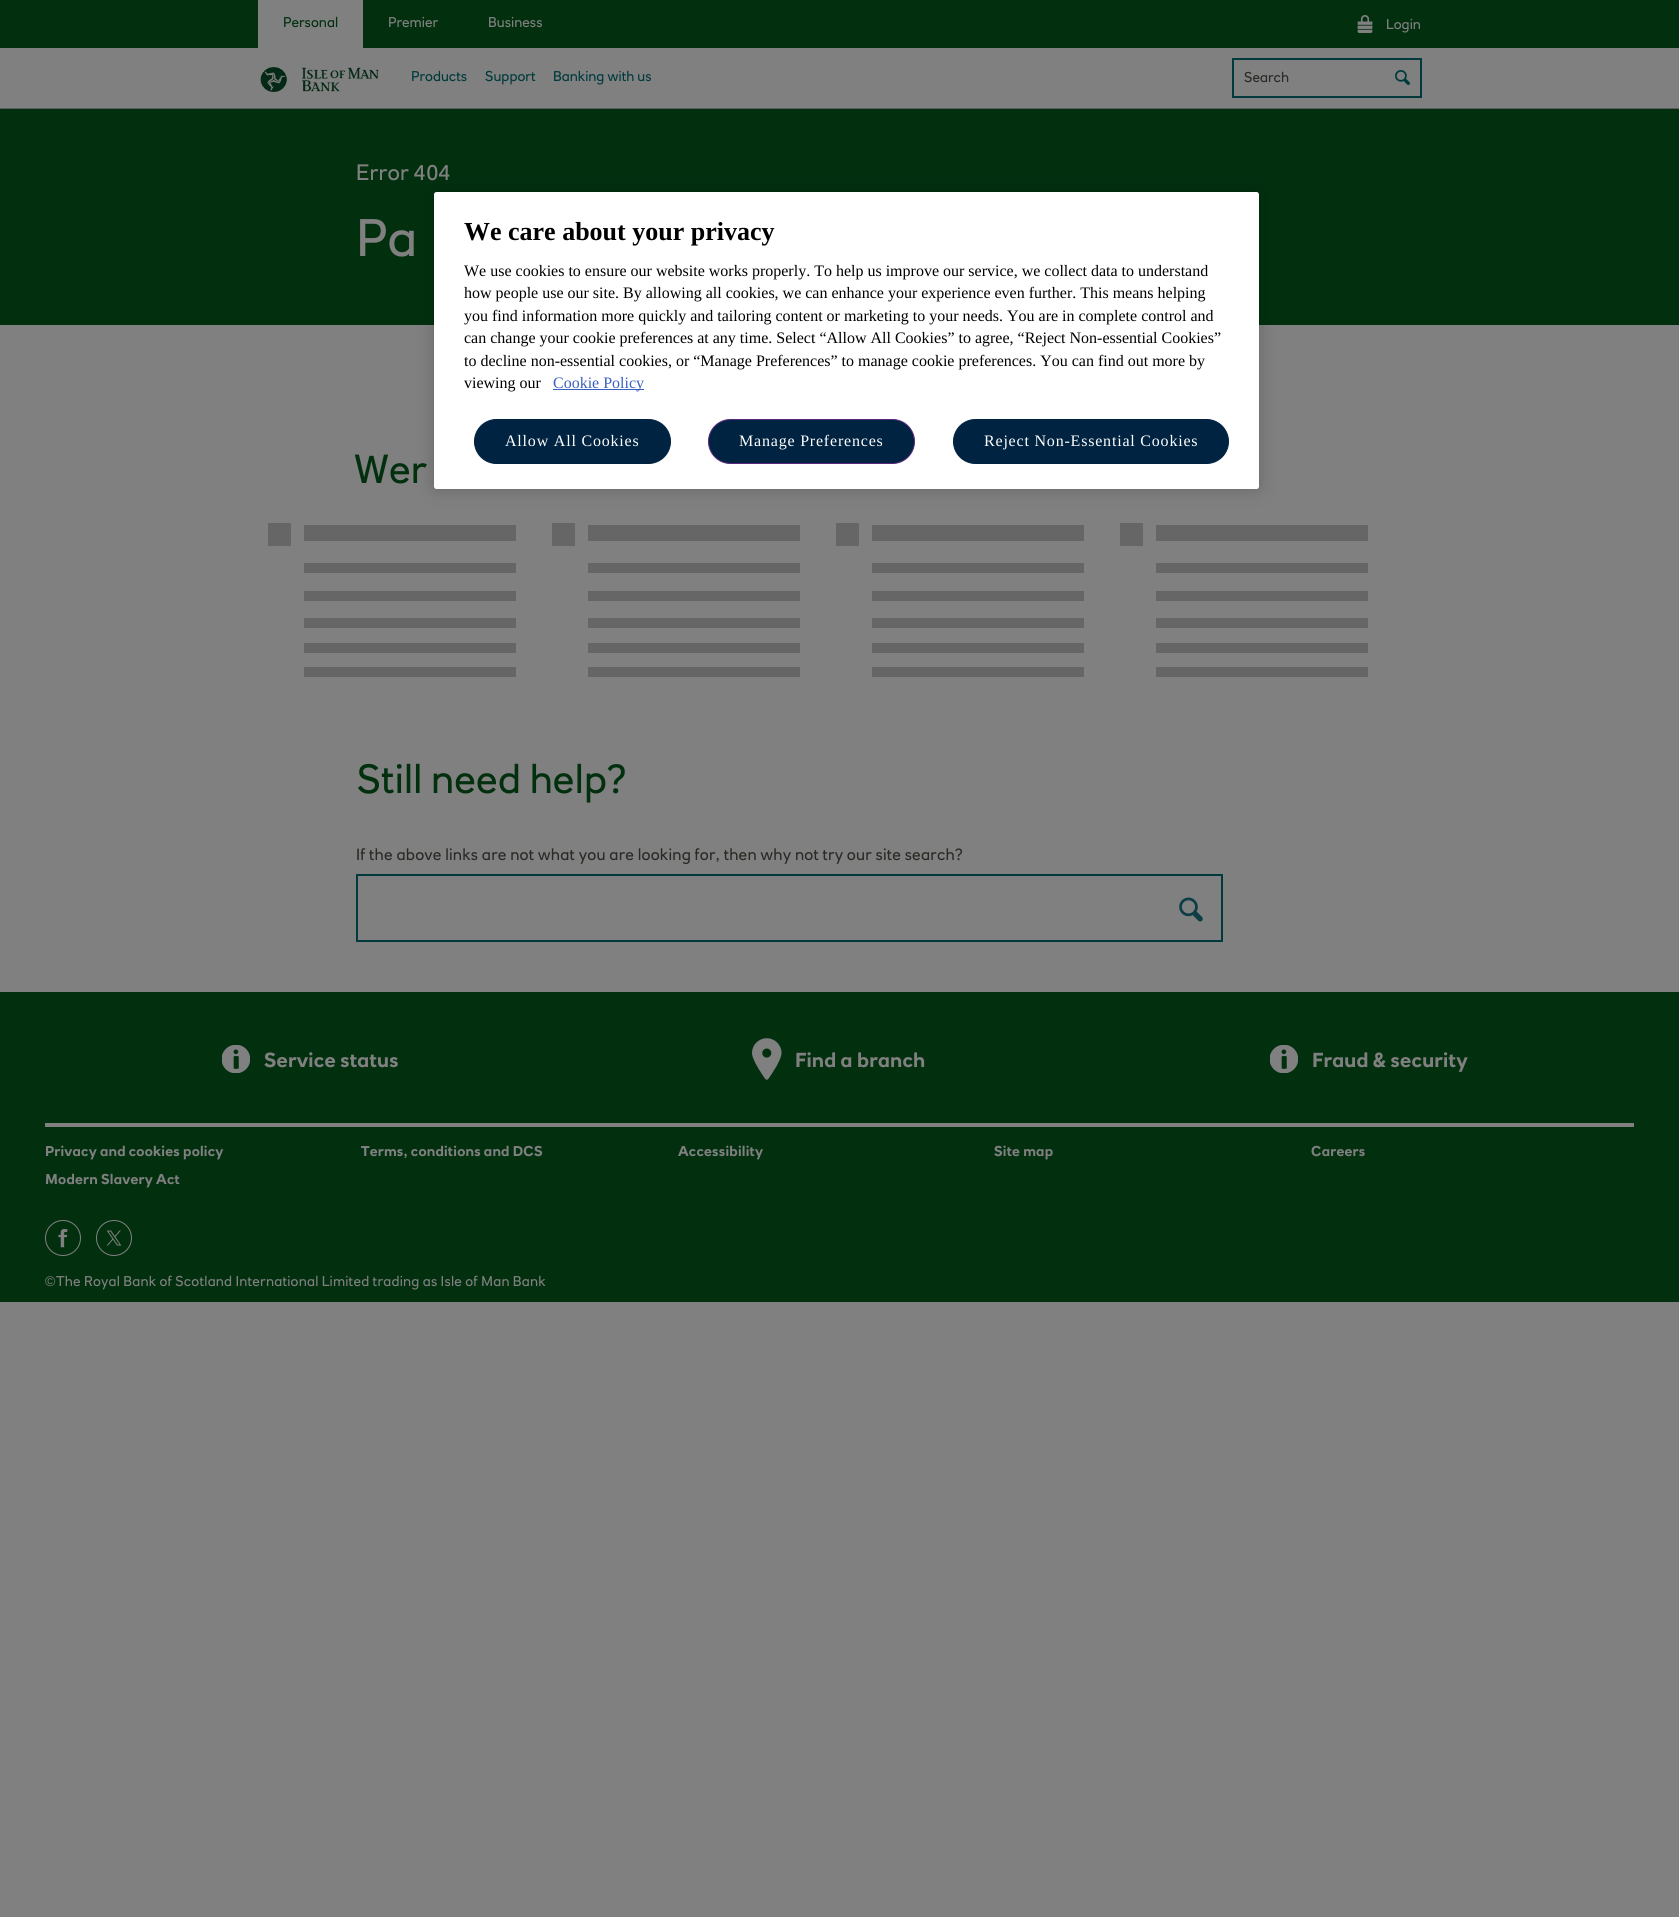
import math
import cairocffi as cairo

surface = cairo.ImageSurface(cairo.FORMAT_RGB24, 1679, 1917)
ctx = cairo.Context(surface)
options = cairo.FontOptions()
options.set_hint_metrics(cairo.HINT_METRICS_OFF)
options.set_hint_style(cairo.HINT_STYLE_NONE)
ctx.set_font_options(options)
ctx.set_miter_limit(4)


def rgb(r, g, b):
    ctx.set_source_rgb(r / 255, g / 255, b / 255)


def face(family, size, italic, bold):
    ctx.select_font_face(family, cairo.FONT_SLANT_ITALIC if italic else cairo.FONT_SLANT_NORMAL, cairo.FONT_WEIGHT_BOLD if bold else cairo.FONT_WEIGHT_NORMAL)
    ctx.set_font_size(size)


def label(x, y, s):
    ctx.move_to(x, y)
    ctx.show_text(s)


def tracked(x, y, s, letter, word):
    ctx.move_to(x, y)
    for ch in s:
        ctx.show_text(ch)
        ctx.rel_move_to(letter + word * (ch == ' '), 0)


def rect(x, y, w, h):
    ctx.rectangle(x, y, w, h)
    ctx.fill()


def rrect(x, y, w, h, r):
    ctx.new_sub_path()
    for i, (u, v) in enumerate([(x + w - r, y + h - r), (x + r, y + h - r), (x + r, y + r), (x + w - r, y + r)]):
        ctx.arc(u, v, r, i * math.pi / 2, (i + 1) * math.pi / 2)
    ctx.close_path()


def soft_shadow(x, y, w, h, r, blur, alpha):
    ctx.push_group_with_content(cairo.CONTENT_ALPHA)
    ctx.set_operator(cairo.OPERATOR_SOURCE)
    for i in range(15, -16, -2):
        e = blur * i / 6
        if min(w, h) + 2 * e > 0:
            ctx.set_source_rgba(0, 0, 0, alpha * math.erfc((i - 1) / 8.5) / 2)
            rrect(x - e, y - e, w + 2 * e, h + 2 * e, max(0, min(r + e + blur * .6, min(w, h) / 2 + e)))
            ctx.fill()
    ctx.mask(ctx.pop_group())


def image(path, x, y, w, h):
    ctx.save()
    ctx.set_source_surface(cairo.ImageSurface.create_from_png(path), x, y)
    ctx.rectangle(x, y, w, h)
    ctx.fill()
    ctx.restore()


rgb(128, 128, 128)
ctx.paint()
rgb(2, 48, 15)
rect(0, 0, 1679, 48)
rgb(128, 128, 128)
rect(258, 0, 105, 48)
face('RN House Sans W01', 14, 0, 0)
rgb(2, 48, 15)
label(283, 27, 'Personal')
rgb(128, 128, 128)
label(388, 27, 'Premier')
label(488, 27, 'Business')
image('image0.png', 1357, 15, 16, 18)
label(1386, 29, 'Login')
rgb(92, 92, 92)
rect(0, 108, 1679, 1)
image('image1.png', 260, 67, 119, 25)
rgb(0, 58, 60)
label(411, 81, 'Products')
label(485, 81, 'Support')
label(553, 81, 'Banking with us')
ctx.rectangle(1233, 59, 188, 38)
ctx.stroke()
rgb(41, 42, 37)
label(1244, 82, 'Search')
image('image2.png', 1395, 70, 15, 15)
rgb(2, 48, 15)
rect(0, 109, 1679, 216)
face('RN House Sans W01', 22, 0, 0)
rgb(128, 128, 128)
tracked(356, 180, 'Error 404', 0.2, 0)
face('RN House Sans W01', 52, 0, 0)
tracked(356, 256, 'Pa', 0.2, 0)
face('RN House Sans W01', 40, 0, 0)
rgb(2, 48, 15)
tracked(354, 483, 'Wer', 0.2, 0)
rgb(102, 102, 102)
rect(268, 523, 23, 23)
rect(304, 667, 212, 10)
rect(304, 643, 212, 10)
rect(304, 618, 212, 10)
rect(304, 591, 212, 10)
rect(304, 563, 212, 10)
rect(304, 525, 212, 16)
rect(552, 523, 23, 23)
rect(588, 667, 212, 10)
rect(588, 643, 212, 10)
rect(588, 618, 212, 10)
rect(588, 591, 212, 10)
rect(588, 563, 212, 10)
rect(588, 525, 212, 16)
rect(836, 523, 23, 23)
rect(872, 667, 212, 10)
rect(872, 643, 212, 10)
rect(872, 618, 212, 10)
rect(872, 591, 212, 10)
rect(872, 563, 212, 10)
rect(872, 525, 212, 16)
rect(1120, 523, 23, 23)
rect(1156, 667, 212, 10)
rect(1156, 643, 212, 10)
rect(1156, 618, 212, 10)
rect(1156, 591, 212, 10)
rect(1156, 563, 212, 10)
rect(1156, 525, 212, 16)
rgb(2, 48, 15)
tracked(357, 793, 'Still need help?', 0.2, 0)
face('RN House Sans W01', 16, 0, 0)
rgb(41, 42, 37)
tracked(356, 860, 'If the above links are not what you are looking for, then why not try our site search?', 0.2, 0)
ctx.rectangle(357, 875, 865, 66)
rgb(0, 58, 60)
ctx.stroke()
image('image3.png', 1179, 897, 24, 25)
rgb(0, 0, 0)
soft_shadow(434, 192, 825, 297, 2.5, 9, 0.2)
rgb(255, 255, 255)
rrect(434, 192, 825, 297, 2.5)
ctx.fill()
face('Liberation Serif', 26, 0, 1)
rgb(0, 0, 0)
label(464, 240, 'We care about your privacy')
face('Liberation Serif', 16, 0, 0)
label(464, 276, 'We use cookies to ensure our website works properly. To help us improve our service, we collect data to understand')
label(464, 298, 'how people use our site. By allowing all cookies, we can enhance your experience even further. This means helping')
label(464, 321, 'you find information more quickly and tailoring content or marketing to your needs. You are in complete control and')
label(464, 343, 'can change your cookie preferences at any time. Select “Allow All Cookies” to agree, “Reject Non-essential Cookies”')
label(464, 366, 'to decline non-essential cookies, or “Manage Preferences” to manage cookie preferences. You can find out more by')
label(464, 388, 'viewing our')
rgb(56, 96, 190)
rect(553, 389, 91, 1)
label(553, 388, 'Cookie Policy')
rgb(0, 35, 65)
rrect(474.5, 419.5, 196, 44, 22)
ctx.fill_preserve()
ctx.set_line_width(1)
ctx.stroke()
rgb(255, 255, 255)
tracked(505, 446, 'Allow All Cookies', 0.8, 0)
rgb(0, 35, 65)
rrect(708.5, 419.5, 206, 44, 22)
ctx.fill_preserve()
rgb(90, 40, 125)
ctx.stroke()
rgb(255, 255, 255)
tracked(739, 446, 'Manage Preferences', 0.8, 0)
rgb(0, 35, 65)
rrect(953.5, 419.5, 275, 44, 22)
ctx.fill_preserve()
ctx.stroke()
rgb(255, 255, 255)
tracked(984, 446, 'Reject Non-Essential Cookies', 0.8, 0)
rgb(2, 48, 15)
rect(0, 992, 1679, 310)
image('image4.png', 222, 1045, 28, 28)
face('RN House Sans W01', 20, 0, 1)
rgb(128, 128, 128)
tracked(264, 1067, 'Service status', 0.2, 0)
image('image5.png', 752, 1038, 30, 42)
tracked(795, 1067, 'Find a branch', 0.2, 0)
image('image4.png', 1270, 1045, 28, 28)
tracked(1312, 1067, 'Fraud & security', 0.2, 0)
rect(45, 1123, 1589, 4)
face('RN House Sans W01', 14, 0, 1)
tracked(45, 1156, 'Privacy and cookies policy', 0.2, 0)
tracked(361, 1156, 'Terms, conditions and DCS', 0.2, 0)
tracked(678, 1156, 'Accessibility', 0.2, 0)
tracked(994, 1156, 'Site map', 0.2, 0)
tracked(1311, 1156, 'Careers', 0.2, 0)
tracked(45, 1184, 'Modern Slavery Act', 0.2, 0)
image('image6.png', 45, 1220, 36, 36)
image('image7.png', 96, 1220, 36, 36)
face('Liberation Sans', 14, 0, 0)
tracked(45, 1286, '©', 0.2, 0)
face('RN House Sans W01', 14, 0, 0)
tracked(56, 1286, 'The Royal Bank of Scotland International Limited trading as Isle of Man Bank', 0.2, 0)
surface.write_to_png('render.png')
